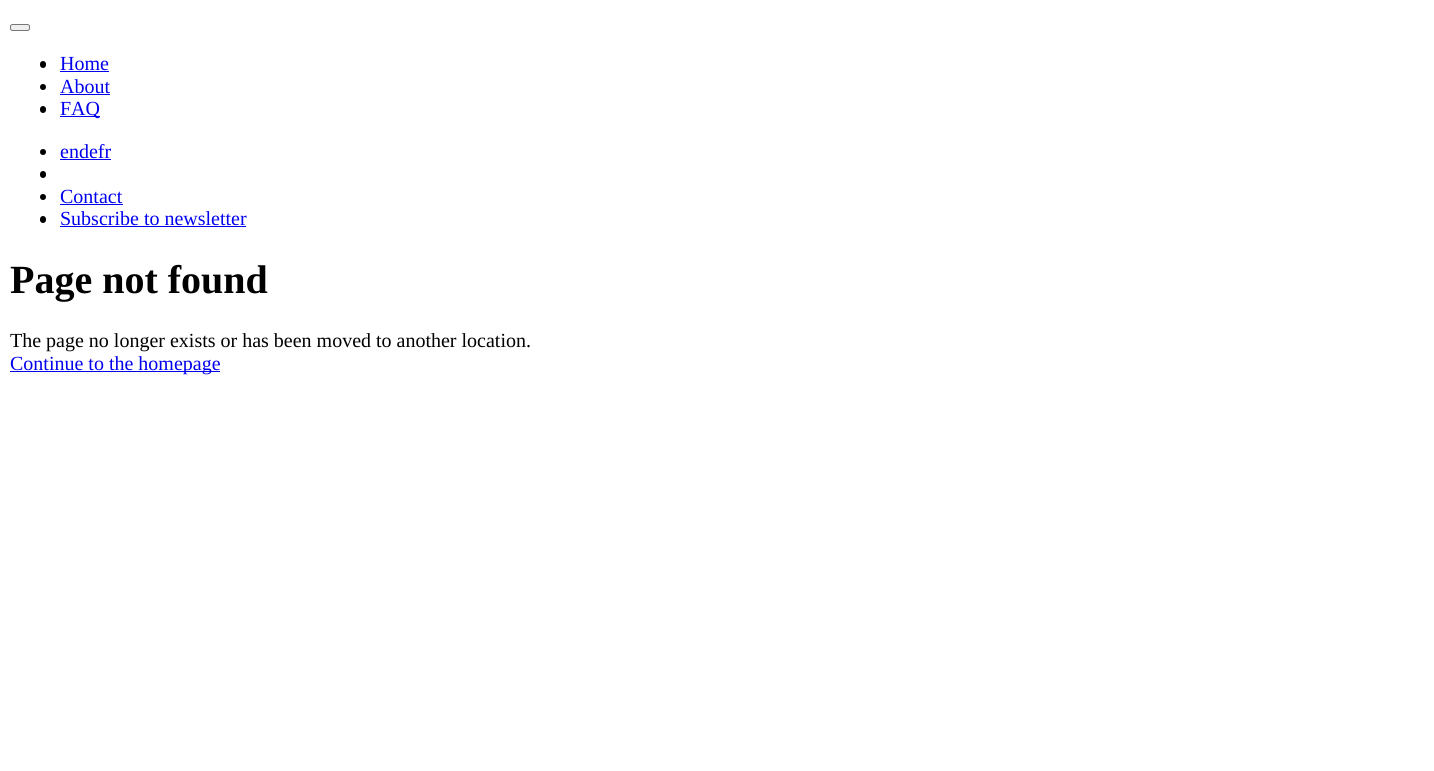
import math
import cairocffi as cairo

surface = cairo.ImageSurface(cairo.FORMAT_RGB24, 1434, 771)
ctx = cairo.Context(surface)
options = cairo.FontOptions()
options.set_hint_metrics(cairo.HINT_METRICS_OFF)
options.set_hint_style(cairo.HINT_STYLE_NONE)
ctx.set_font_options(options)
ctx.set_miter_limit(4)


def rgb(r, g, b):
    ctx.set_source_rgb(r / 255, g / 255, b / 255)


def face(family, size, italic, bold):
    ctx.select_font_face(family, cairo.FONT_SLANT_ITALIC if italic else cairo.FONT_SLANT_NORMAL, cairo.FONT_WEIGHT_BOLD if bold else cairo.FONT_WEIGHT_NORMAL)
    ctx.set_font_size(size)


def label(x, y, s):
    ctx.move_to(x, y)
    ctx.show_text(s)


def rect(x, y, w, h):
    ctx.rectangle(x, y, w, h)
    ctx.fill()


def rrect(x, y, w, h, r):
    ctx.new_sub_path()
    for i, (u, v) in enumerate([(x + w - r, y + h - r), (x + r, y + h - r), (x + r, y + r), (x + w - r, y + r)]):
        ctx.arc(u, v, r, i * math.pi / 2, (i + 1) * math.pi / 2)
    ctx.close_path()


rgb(255, 255, 255)
ctx.paint()
rgb(239, 239, 239)
rrect(10.5, 24.5, 19, 6, 2)
ctx.fill_preserve()
rgb(118, 118, 118)
ctx.set_line_width(1)
ctx.stroke()
rgb(0, 0, 0)
rrect(40, 61, 6, 7, 3)
ctx.fill()
face('Liberation Serif', 20, 0, 0)
rgb(0, 0, 238)
label(60, 70, 'Home')
rect(60, 71, 49, 1)
rgb(0, 0, 0)
ctx.new_path()
ctx.arc(43, 87, 3, 0, 2 * math.pi)
ctx.fill()
rgb(0, 0, 238)
label(60, 93, 'About')
rect(60, 94, 50, 1)
rgb(0, 0, 0)
rrect(40, 106, 6, 7, 3)
ctx.fill()
rgb(0, 0, 238)
rect(60, 116, 40, 1)
label(60, 115, 'FAQ')
rgb(0, 0, 0)
ctx.new_path()
ctx.arc(43, 152, 3, 0, 2 * math.pi)
ctx.fill()
rgb(0, 0, 238)
label(60, 158, 'endefr')
rect(60, 159, 51, 1)
rgb(0, 0, 0)
rrect(40, 171, 6, 7, 3)
ctx.fill()
ctx.arc(43, 197, 3, 0, 2 * math.pi)
ctx.fill()
rgb(0, 0, 238)
label(60, 203, 'Contact')
rect(60, 204, 63, 1)
rgb(0, 0, 0)
rrect(40, 216, 6, 7, 3)
ctx.fill()
rgb(0, 0, 238)
label(60, 225, 'Subscribe to newsletter')
rect(60, 226, 186, 1)
face('Liberation Serif', 40, 0, 1)
rgb(0, 0, 0)
label(10, 293, 'Page not found')
face('Liberation Serif', 20, 0, 0)
label(10, 347, 'The page no longer exists or has been moved to another location.')
rgb(0, 0, 238)
rect(10, 371, 210, 1)
label(10, 370, 'Continue to the homepage')
surface.write_to_png('render.png')
